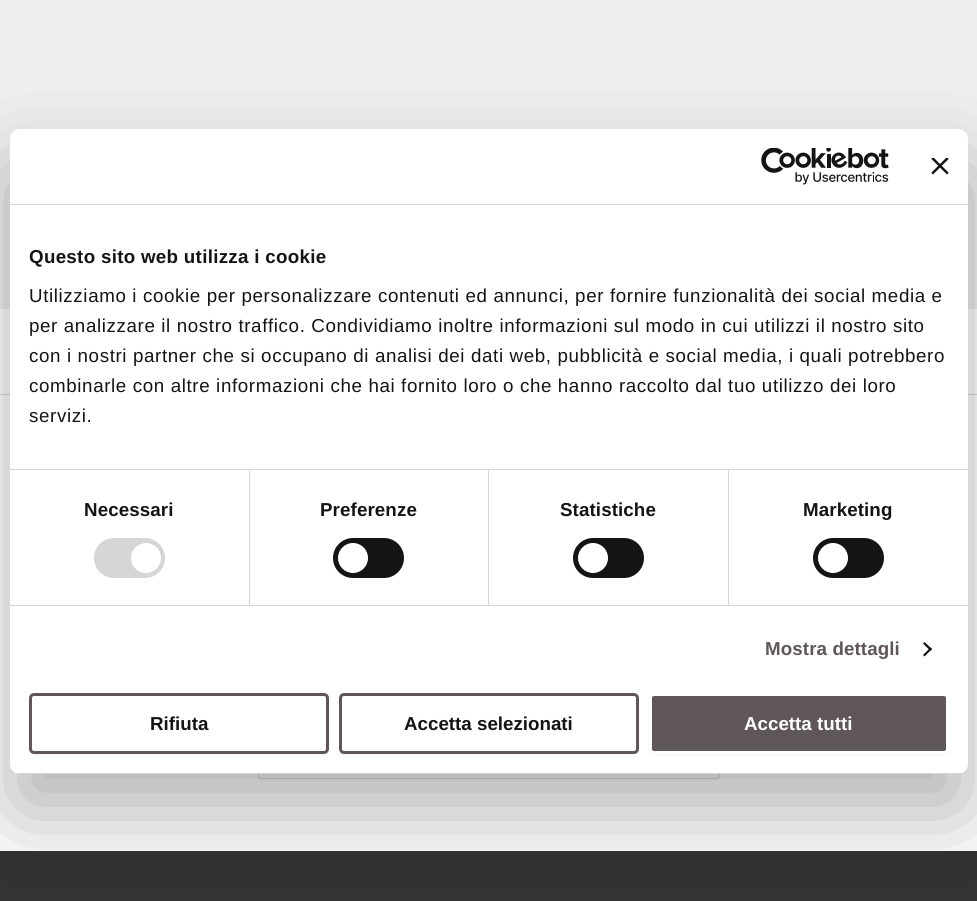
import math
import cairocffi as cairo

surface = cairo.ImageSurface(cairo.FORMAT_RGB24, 977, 901)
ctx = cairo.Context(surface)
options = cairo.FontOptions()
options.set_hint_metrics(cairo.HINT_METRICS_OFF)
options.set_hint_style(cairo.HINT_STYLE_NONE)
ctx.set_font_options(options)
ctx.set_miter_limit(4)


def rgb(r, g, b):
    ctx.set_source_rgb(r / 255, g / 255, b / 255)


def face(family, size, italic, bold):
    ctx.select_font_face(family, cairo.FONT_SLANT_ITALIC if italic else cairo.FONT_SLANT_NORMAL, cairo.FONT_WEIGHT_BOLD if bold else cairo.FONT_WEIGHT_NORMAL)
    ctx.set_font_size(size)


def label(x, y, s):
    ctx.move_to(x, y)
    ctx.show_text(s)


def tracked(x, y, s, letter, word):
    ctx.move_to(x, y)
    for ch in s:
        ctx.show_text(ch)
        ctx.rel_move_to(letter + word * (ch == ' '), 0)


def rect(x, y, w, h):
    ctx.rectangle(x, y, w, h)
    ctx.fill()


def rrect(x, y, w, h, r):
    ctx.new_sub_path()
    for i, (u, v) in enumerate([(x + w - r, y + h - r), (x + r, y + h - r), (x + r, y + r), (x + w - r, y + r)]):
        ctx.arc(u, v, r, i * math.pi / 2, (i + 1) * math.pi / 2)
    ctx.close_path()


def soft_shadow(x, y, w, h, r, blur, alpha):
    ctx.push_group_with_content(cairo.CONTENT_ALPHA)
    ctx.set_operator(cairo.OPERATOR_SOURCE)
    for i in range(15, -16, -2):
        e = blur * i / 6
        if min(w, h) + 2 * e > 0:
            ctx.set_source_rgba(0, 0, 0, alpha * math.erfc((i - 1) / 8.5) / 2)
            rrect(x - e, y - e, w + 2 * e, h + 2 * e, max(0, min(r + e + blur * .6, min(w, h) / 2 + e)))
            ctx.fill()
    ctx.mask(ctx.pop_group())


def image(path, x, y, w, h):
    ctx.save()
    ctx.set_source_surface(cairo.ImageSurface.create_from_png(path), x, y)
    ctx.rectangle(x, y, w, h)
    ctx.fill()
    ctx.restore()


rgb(255, 255, 255)
ctx.paint()
rgb(239, 239, 239)
rect(0, 0, 977, 309)
rgb(229, 215, 209)
rect(0, 394, 977, 1)
rgb(0, 0, 0)
soft_shadow(258, 730, 462, 50, 2.5, 1, 0.05)
rgb(250, 250, 250)
rrect(258.5, 729.5, 461, 49, 2)
ctx.fill_preserve()
rgb(229, 215, 209)
ctx.set_line_width(1)
ctx.stroke()
rgb(51, 51, 51)
rect(0, 851, 977, 50)
rgb(0, 0, 0)
soft_shadow(10, 169, 958, 645, 10, 42.5, 0.3)
rgb(255, 255, 255)
rrect(10, 129, 958, 645, 10)
ctx.fill()
rgb(214, 214, 214)
rect(10, 204, 958, 1)
image('image0.png', 761, 148, 128, 37)
image('image1.png', 931, 158, 18, 17)
rect(10, 469, 958, 1)
face('Liberation Sans', 18.75, 0, 1)
rgb(20, 20, 20)
tracked(29, 263, 'Questo sito web utilizza i cookie', 0.3, 0)
face('Liberation Sans', 18.75, 0, 0)
tracked(29, 302, 'Utilizziamo i cookie per personalizzare contenuti ed annunci, per fornire funzionalità dei social media e', 0.62, 0)
tracked(29, 332, 'per analizzare il nostro traffico. Condividiamo inoltre informazioni sul modo in cui utilizzi il nostro sito', 0.62, 0)
tracked(29, 362, 'con i nostri partner che si occupano di analisi dei dati web, pubblicità e social media, i quali potrebbero', 0.62, 0)
tracked(29, 392, 'combinarle con altre informazioni che hai fornito loro o che hanno raccolto dal tuo utilizzo dei loro', 0.62, 0)
tracked(29, 422, 'servizi.', 0.62, 0)
rgb(214, 214, 214)
rect(10, 605, 958, 1)
rect(249, 470, 1, 135)
face('Liberation Sans', 18.75, 0, 1)
rgb(20, 20, 20)
tracked(84, 516, 'Necessari', 0.1, 0)
rgb(214, 214, 214)
rrect(94, 538, 71, 40, 20)
ctx.fill()
rgb(255, 255, 255)
ctx.arc(146, 558, 15, 0, 2 * math.pi)
ctx.fill()
rgb(214, 214, 214)
rect(488, 470, 1, 135)
rgb(20, 20, 20)
tracked(320, 516, 'Preferenze', 0.1, 0)
rrect(333, 538, 71, 40, 20)
ctx.fill()
rgb(255, 255, 255)
ctx.arc(353, 558, 15, 0, 2 * math.pi)
ctx.fill()
rgb(214, 214, 214)
rect(728, 470, 1, 135)
rgb(20, 20, 20)
tracked(560, 516, 'Statistiche', 0.1, 0)
rrect(573, 538, 71, 40, 20)
ctx.fill()
rgb(255, 255, 255)
ctx.arc(593, 558, 15, 0, 2 * math.pi)
ctx.fill()
rgb(20, 20, 20)
tracked(803, 516, 'Marketing', 0.1, 0)
rrect(813, 538, 71, 40, 20)
ctx.fill()
rgb(255, 255, 255)
ctx.arc(833, 558, 15, 0, 2 * math.pi)
ctx.fill()
rgb(95, 87, 87)
tracked(765, 655, 'Mostra dettagli', 0.1, 0)
rgb(20, 20, 20)
ctx.new_path()
ctx.move_to(924.5, 642)
ctx.line_to(932, 649)
ctx.line_to(930.5, 651)
ctx.line_to(923, 643.5)
ctx.close_path()
ctx.fill()
ctx.new_path()
ctx.move_to(930.5, 647.5)
ctx.line_to(932, 649)
ctx.line_to(924.5, 656.5)
ctx.line_to(923, 655)
ctx.close_path()
ctx.fill()
ctx.save()
rrect(10, 129, 958, 645, 10)
ctx.clip()
rgb(214, 214, 214)
rect(10, 773, 958, 1)
ctx.restore()
rgb(0, 0, 0)
soft_shadow(29, 694, 300, 61, 5, 1, 0.05)
rgb(255, 255, 255)
rrect(30.5, 694.5, 297, 58, 3.5)
ctx.fill_preserve()
rgb(95, 87, 87)
ctx.set_line_width(3)
ctx.stroke()
rgb(20, 20, 20)
label(150, 730, 'Rifiuta')
rgb(0, 0, 0)
soft_shadow(339, 694, 300, 61, 5, 1, 0.05)
rgb(255, 255, 255)
rrect(340.5, 694.5, 297, 58, 3.5)
ctx.fill_preserve()
rgb(95, 87, 87)
ctx.stroke()
rgb(20, 20, 20)
label(404, 730, 'Accetta selezionati')
rgb(0, 0, 0)
soft_shadow(649, 694, 300, 61, 5, 1, 0.05)
rgb(95, 87, 87)
rrect(650.5, 694.5, 297, 58, 3.5)
ctx.fill_preserve()
rgb(255, 255, 255)
ctx.stroke()
label(744, 730, 'Accetta tutti')
surface.write_to_png('render.png')
